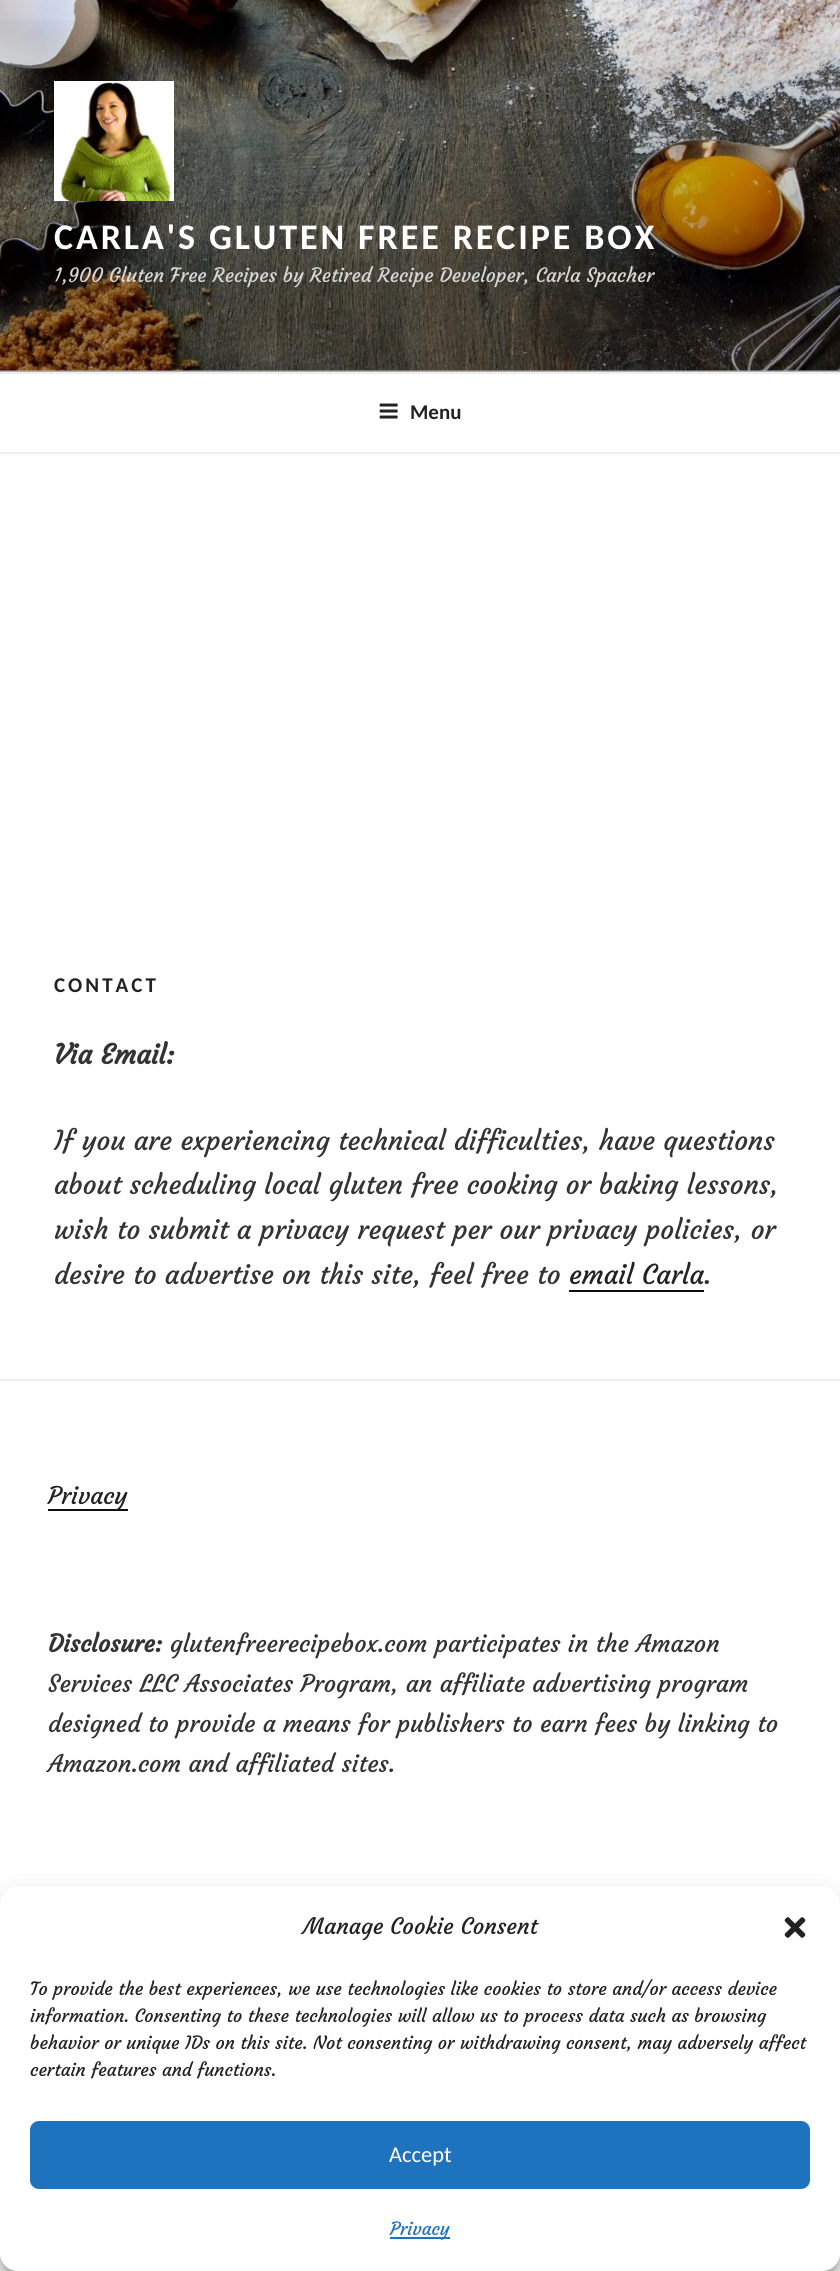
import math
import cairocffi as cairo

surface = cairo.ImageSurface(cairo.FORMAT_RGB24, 840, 2271)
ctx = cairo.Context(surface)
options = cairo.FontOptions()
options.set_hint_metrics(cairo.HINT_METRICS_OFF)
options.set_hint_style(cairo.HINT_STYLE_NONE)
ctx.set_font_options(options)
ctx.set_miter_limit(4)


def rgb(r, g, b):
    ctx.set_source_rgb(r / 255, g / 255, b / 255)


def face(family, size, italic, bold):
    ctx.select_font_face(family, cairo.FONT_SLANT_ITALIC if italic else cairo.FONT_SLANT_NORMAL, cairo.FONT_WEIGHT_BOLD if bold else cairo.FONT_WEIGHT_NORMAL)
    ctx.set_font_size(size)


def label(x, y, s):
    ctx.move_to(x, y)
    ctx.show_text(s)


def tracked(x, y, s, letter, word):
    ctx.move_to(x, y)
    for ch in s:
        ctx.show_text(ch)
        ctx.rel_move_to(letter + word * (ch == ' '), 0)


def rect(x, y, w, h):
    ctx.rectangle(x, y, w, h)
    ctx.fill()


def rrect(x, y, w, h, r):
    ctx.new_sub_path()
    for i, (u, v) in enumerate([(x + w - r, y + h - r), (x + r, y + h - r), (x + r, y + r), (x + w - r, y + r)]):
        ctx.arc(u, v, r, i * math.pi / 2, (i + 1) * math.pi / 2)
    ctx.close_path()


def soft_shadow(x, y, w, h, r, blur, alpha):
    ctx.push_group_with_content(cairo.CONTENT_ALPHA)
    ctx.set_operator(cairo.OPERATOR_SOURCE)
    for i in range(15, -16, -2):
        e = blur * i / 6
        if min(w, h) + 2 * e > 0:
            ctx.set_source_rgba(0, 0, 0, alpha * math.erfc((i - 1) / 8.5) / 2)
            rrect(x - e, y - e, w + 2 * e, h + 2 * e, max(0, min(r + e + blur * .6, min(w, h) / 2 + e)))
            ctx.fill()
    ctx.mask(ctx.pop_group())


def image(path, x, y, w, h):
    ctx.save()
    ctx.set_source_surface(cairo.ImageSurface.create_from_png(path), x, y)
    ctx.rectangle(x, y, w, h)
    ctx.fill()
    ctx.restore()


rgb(255, 255, 255)
ctx.paint()
rgb(250, 250, 250)
rect(0, 370, 840, 2)
image('image0.png', 0, 0, 840, 371)
gradient = cairo.LinearGradient(420, 0, 420, 372)
gradient.add_color_stop_rgba(0, 0, 0, 0, 0)
gradient.add_color_stop_rgba(0.75, 0, 0, 0, 0.3)
gradient.add_color_stop_rgba(1, 0, 0, 0, 0.3)
ctx.set_source(gradient)
rect(0, 20, 840, 352)
image('image1.png', 54, 81, 120, 120)
face('Carlito', 36, 0, 1)
rgb(255, 255, 255)
tracked(54, 249, 'CARLA\'S GLUTEN FREE RECIPE BOX', 2.9, 0)
face('Courgette', 19.5, 0, 0)
rgb(216, 215, 213)
label(54, 282, '1,900 Gluten Free Recipes by Retired Recipe Developer, Carla Spacher')
rgb(238, 238, 238)
rect(0, 372, 840, 2)
rect(0, 452, 840, 2)
image('image2.png', 379, 403, 19, 16)
face('Carlito', 21, 0, 1)
rgb(34, 34, 34)
label(410, 419, 'Menu')
tracked(54, 992, 'CONTACT', 3, 0)
face('Courgette', 27, 0, 1)
rgb(51, 51, 51)
label(54, 1064, 'Via Email:')
face('Courgette', 27, 0, 0)
label(54, 1150, 'If you are experiencing technical difficulties, have questions')
label(54, 1194, 'about scheduling local gluten free cooking or baking lessons,')
label(54, 1239, 'wish to submit a privacy request per our privacy policies, or')
label(54, 1284, 'desire to advertise on this site, feel free to')
rgb(34, 34, 34)
label(569, 1284, 'email Carla')
rgb(15, 15, 15)
rect(569, 1290, 135, 2)
rgb(51, 51, 51)
label(704, 1284, '.')
rgb(238, 238, 238)
rect(0, 1379, 840, 2)
rgb(15, 15, 15)
rect(48, 1509, 80, 2)
face('Courgette', 24, 0, 0)
rgb(34, 34, 34)
label(48, 1504, 'Privacy')
face('Courgette', 24, 0, 1)
rgb(51, 51, 51)
label(48, 1652, 'Disclosure:')
face('Courgette', 24, 0, 0)
label(170, 1652, 'glutenfreerecipebox.com participates in the Amazon')
label(48, 1692, 'Services LLC Associates Program, an affiliate advertising program')
label(48, 1732, 'designed to provide a means for publishers to earn fees by linking to')
label(48, 1772, 'Amazon.com and affiliated sites.')
rgb(0, 0, 0)
soft_shadow(0, 1895, 840, 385, 18, 4.5, 0.23)
soft_shadow(0, 1901, 840, 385, 18, 15, 0.19)
rgb(255, 255, 255)
rrect(0, 1886, 840, 385, 18)
ctx.fill()
face('Courgette', 22.5, 0, 0)
rgb(34, 34, 34)
label(303, 1934, 'Manage Cookie Consent')
image('image3.png', 784, 1917, 22, 21)
face('Courgette', 18, 0, 0)
label(30, 1995, 'To provide the best experiences, we use technologies like cookies to store and/or access device')
label(30, 2022, 'information. Consenting to these technologies will allow us to process data such as browsing')
label(30, 2049, 'behavior or unique IDs on this site. Not consenting or withdrawing consent, may adversely affect')
label(30, 2076, 'certain features and functions.')
rgb(30, 115, 190)
rrect(31, 2122, 778, 66, 8)
ctx.fill_preserve()
ctx.stroke()
face('Carlito', 22.5, 0, 0)
rgb(255, 255, 255)
label(389, 2162, 'Accept')
rgb(30, 115, 190)
rect(390, 2237, 60, 2)
face('Courgette', 18, 0, 0)
label(390, 2235, 'Privacy')
surface.write_to_png('render.png')
